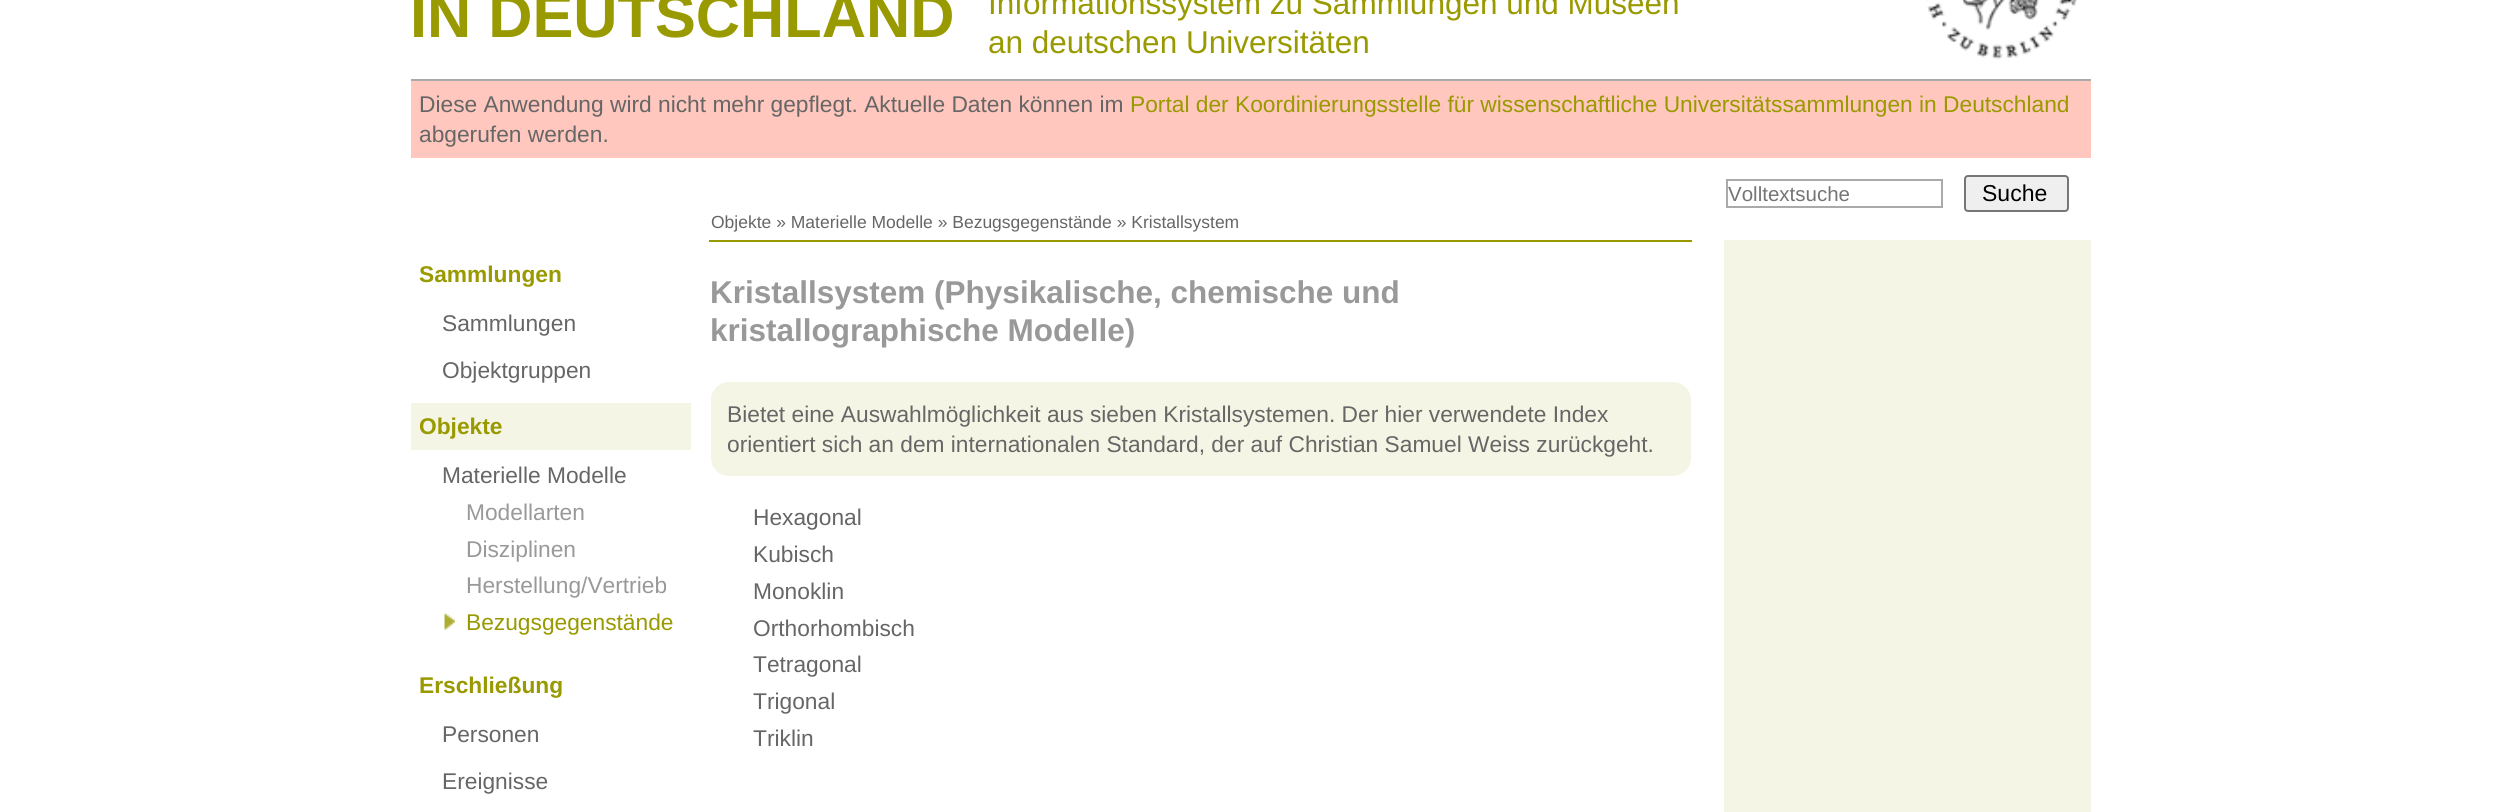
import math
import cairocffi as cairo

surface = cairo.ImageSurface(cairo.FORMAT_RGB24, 2500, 812)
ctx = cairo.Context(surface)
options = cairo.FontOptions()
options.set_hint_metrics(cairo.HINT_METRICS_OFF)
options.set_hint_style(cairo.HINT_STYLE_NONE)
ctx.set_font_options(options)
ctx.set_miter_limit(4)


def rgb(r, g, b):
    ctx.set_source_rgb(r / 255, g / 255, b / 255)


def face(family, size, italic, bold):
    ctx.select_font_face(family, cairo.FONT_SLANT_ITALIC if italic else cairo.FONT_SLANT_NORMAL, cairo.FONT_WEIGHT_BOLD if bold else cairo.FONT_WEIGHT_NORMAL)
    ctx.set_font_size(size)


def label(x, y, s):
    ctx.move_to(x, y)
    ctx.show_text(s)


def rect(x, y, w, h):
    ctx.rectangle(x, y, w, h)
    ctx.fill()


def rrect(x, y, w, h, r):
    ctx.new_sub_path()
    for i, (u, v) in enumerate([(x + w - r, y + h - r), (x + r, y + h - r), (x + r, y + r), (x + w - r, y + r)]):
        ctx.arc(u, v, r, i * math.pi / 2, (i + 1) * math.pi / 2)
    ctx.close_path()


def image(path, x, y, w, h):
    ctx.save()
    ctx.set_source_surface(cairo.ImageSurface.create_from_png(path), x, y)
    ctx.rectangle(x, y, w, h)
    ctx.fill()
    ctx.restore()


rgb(255, 255, 255)
ctx.paint()
rgb(170, 170, 170)
rect(411, 79, 1680, 2)
face('Liberation Sans', 61.25, 0, 1)
rgb(153, 153, 0)
label(410, 37, 'IN DEUTSCHLAND')
face('Liberation Sans', 31.5, 0, 0)
label(988, 14, 'Informationssystem zu Sammlungen und Museen')
label(988, 53, 'an deutschen Universitäten')
image('image0.png', 1925, 0, 153, 60)
rgb(255, 199, 189)
rect(411, 81, 1680, 77)
face('Liberation Sans', 22.75, 0, 0)
rgb(102, 102, 102)
label(419, 112, 'Diese Anwendung wird nicht mehr gepflegt. Aktuelle Daten können im')
rgb(153, 153, 0)
label(1130, 112, 'Portal der Koordinierungsstelle für wissenschaftliche Universitätssammlungen in Deutschland')
rgb(102, 102, 102)
label(419, 142, 'abgerufen werden.')
ctx.rectangle(1727, 180, 215, 27)
rgb(170, 170, 170)
ctx.stroke()
face('Liberation Sans', 20.5, 0, 0)
rgb(117, 117, 117)
label(1728, 201, 'Volltextsuche')
rgb(239, 239, 239)
rrect(1965, 176, 103, 35, 3)
ctx.fill_preserve()
rgb(118, 118, 118)
ctx.stroke()
face('Liberation Sans', 23, 0, 0)
rgb(0, 0, 0)
label(1982, 201, 'Suche')
face('Liberation Sans', 17.5, 0, 0)
rgb(102, 102, 102)
label(711, 228, 'Objekte » Materielle Modelle » Bezugsgegenstände » Kristallsystem')
face('Liberation Sans', 22.75, 0, 1)
rgb(153, 153, 0)
label(419, 282, 'Sammlungen')
face('Liberation Sans', 22.75, 0, 0)
rgb(102, 102, 102)
label(442, 331, 'Sammlungen')
label(442, 378, 'Objektgruppen')
rgb(245, 245, 229)
rect(411, 403, 280, 47)
face('Liberation Sans', 22.75, 0, 1)
rgb(153, 153, 0)
label(419, 434, 'Objekte')
face('Liberation Sans', 22.75, 0, 0)
rgb(102, 102, 102)
label(442, 483, 'Materielle Modelle')
rgb(153, 153, 153)
label(466, 520, 'Modellarten')
label(466, 557, 'Disziplinen')
label(466, 593, 'Herstellung/Vertrieb')
image('image1.png', 444, 613, 11, 17)
rgb(153, 153, 0)
label(466, 630, 'Bezugsgegenstände')
face('Liberation Sans', 22.75, 0, 1)
label(419, 693, 'Erschließung')
face('Liberation Sans', 22.75, 0, 0)
rgb(102, 102, 102)
label(442, 742, 'Personen')
label(442, 789, 'Ereignisse')
rgb(153, 153, 0)
rect(709, 240, 983, 2)
face('Liberation Sans', 31.5, 0, 1)
rgb(153, 153, 153)
label(710, 303, 'Kristallsystem (Physikalische, chemische und')
label(710, 341, 'kristallographische Modelle)')
rgb(245, 245, 229)
rrect(711, 382, 980, 94, 18)
ctx.fill()
face('Liberation Sans', 22.75, 0, 0)
rgb(102, 102, 102)
label(727, 422, 'Bietet eine Auswahlmöglichkeit aus sieben Kristallsystemen. Der hier verwendete Index')
label(727, 452, 'orientiert sich an dem internationalen Standard, der auf Christian Samuel Weiss zurückgeht.')
label(753, 525, 'Hexagonal')
label(753, 562, 'Kubisch')
label(753, 599, 'Monoklin')
label(753, 636, 'Orthorhombisch')
label(753, 672, 'Tetragonal')
label(753, 709, 'Trigonal')
label(753, 746, 'Triklin')
rgb(245, 245, 229)
rect(1724, 240, 367, 572)
surface.write_to_png('render.png')
